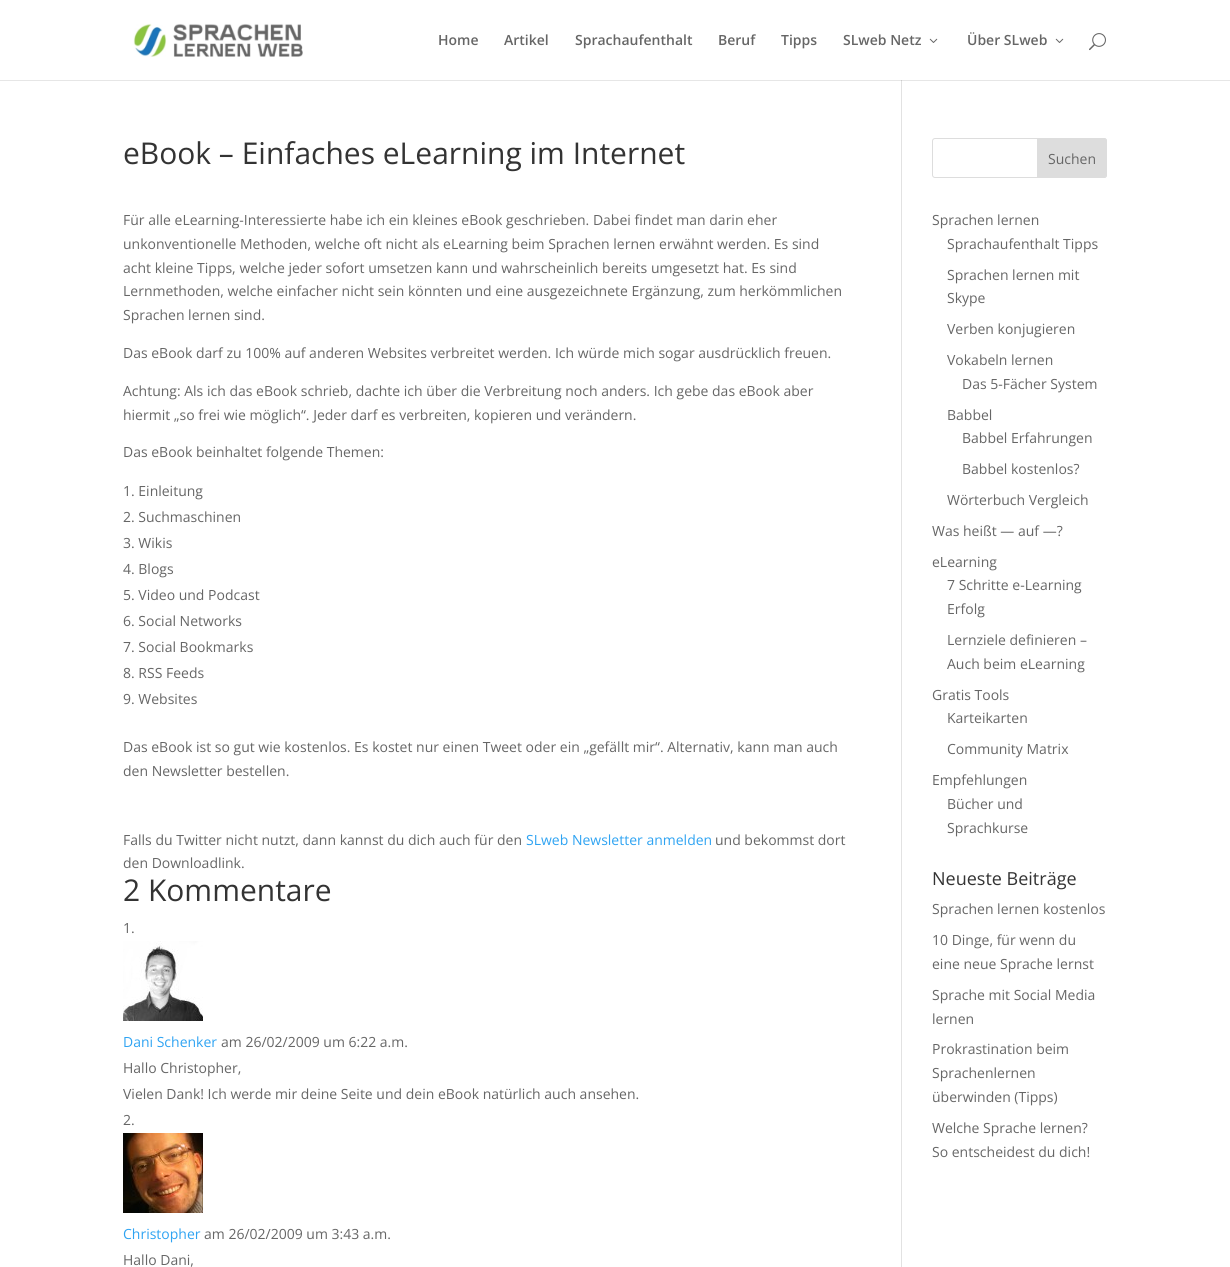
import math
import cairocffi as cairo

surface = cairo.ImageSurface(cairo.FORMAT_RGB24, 1230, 1267)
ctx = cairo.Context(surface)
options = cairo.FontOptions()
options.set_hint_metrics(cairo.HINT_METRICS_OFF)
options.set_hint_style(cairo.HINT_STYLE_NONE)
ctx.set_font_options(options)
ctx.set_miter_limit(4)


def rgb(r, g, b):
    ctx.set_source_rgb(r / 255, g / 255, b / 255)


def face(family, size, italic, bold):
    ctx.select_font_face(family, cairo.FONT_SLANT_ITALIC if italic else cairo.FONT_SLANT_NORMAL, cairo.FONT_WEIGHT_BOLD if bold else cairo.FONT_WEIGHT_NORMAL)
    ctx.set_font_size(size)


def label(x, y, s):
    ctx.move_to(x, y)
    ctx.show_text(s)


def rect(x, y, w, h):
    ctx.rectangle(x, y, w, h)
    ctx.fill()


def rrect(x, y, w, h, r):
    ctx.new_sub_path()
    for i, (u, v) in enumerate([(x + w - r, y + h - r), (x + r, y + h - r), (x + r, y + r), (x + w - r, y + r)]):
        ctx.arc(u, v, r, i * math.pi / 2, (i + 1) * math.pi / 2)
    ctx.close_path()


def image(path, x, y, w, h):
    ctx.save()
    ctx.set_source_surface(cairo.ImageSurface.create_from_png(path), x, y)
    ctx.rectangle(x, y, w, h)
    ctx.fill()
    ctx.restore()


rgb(255, 255, 255)
ctx.paint()
rgb(230, 230, 230)
rect(0, 80, 1230, 1)
image('image0.png', 133, 23, 170, 34)
face('Open Sans SemiBold', 14, 0, 0)
rgb(102, 102, 102)
label(438, 45, 'Home')
label(504, 45, 'Artikel')
label(575, 45, 'Sprachaufenthalt')
label(718, 45, 'Beruf')
label(781, 45, 'Tipps')
label(843, 45, 'SLweb Netz')
image('image1.png', 929, 38, 9, 5)
label(967, 45, 'Über SLweb')
image('image1.png', 1055, 38, 9, 5)
image('image2.png', 1089, 33, 17, 18)
rgb(226, 226, 226)
rect(901, 80, 1, 1187)
rgb(203, 203, 203)
rect(901, 80, 1, 1)
face('Open Sans', 30, 0, 0)
rgb(51, 51, 51)
label(123, 164, 'eBook – Einfaches eLearning im Internet')
face('Open Sans', 14, 0, 0)
rgb(102, 102, 102)
label(123, 225, 'Für alle eLearning-Interessierte habe ich ein kleines eBook geschrieben. Dabei findet man darin eher')
label(123, 249, 'unkonventionelle Methoden, welche oft nicht als eLearning beim Sprachen lernen erwähnt werden. Es sind')
label(123, 273, 'acht kleine Tipps, welche jeder sofort umsetzen kann und wahrscheinlich bereits umgesetzt hat. Es sind')
label(123, 296, 'Lernmethoden, welche einfacher nicht sein könnten und eine ausgezeichnete Ergänzung, zum herkömmlichen')
label(123, 320, 'Sprachen lernen sind.')
label(123, 358, 'Das eBook darf zu 100% auf anderen Websites verbreitet werden. Ich würde mich sogar ausdrücklich freuen.')
label(123, 396, 'Achtung: Als ich das eBook schrieb, dachte ich über die Verbreitung noch anders. Ich gebe das eBook aber')
label(123, 420, 'hiermit „so frei wie möglich“. Jeder darf es verbreiten, kopieren und verändern.')
label(123, 457, 'Das eBook beinhaltet folgende Themen:')
label(123, 496, '1. Einleitung')
label(123, 522, '2. Suchmaschinen')
label(123, 548, '3. Wikis')
label(123, 574, '4. Blogs')
label(123, 600, '5. Video und Podcast')
label(123, 626, '6. Social Networks')
label(123, 652, '7. Social Bookmarks')
label(123, 678, '8. RSS Feeds')
label(123, 704, '9. Websites')
label(123, 752, 'Das eBook ist so gut wie kostenlos. Es kostet nur einen Tweet oder ein „gefällt mir“. Alternativ, kann man auch')
label(123, 776, 'den Newsletter bestellen.')
label(123, 845, 'Falls du Twitter nicht nutzt, dann kannst du dich auch für den')
rgb(46, 163, 242)
label(526, 845, 'SLweb Newsletter anmelden')
rgb(102, 102, 102)
label(715, 845, 'und bekommst dort')
label(123, 868, 'den Downloadlink.')
face('Open Sans', 30, 0, 0)
rgb(51, 51, 51)
label(123, 901, '2 Kommentare')
face('Open Sans', 14, 0, 0)
rgb(102, 102, 102)
label(123, 933, '1.')
image('image3.png', 123, 941, 80, 80)
rgb(46, 163, 242)
label(123, 1047, 'Dani Schenker')
rgb(102, 102, 102)
label(221, 1047, 'am 26/02/2009 um 6:22 a.m.')
label(123, 1073, 'Hallo Christopher,')
label(123, 1099, 'Vielen Dank! Ich werde mir deine Seite und dein eBook natürlich auch ansehen.')
label(123, 1125, '2.')
image('image4.png', 123, 1133, 80, 80)
rgb(46, 163, 242)
label(123, 1239, 'Christopher')
rgb(102, 102, 102)
label(204, 1239, 'am 26/02/2009 um 3:43 a.m.')
label(123, 1265, 'Hallo Dani,')
rrect(932.5, 138.5, 174, 39, 2.5)
rgb(221, 221, 221)
ctx.set_line_width(1)
ctx.stroke()
ctx.new_path()
ctx.move_to(1037.5, 138.5)
ctx.line_to(1104, 138.5)
ctx.curve_to(1105.5, 138.5, 1106.5, 139.5, 1106.5, 141)
ctx.line_to(1106.5, 175)
ctx.curve_to(1106.5, 176.5, 1105.5, 177.5, 1104, 177.5)
ctx.line_to(1037.5, 177.5)
ctx.close_path()
ctx.fill_preserve()
ctx.stroke()
rgb(102, 102, 102)
label(1048, 164, 'Suchen')
label(932, 225, 'Sprachen lernen')
label(947, 249, 'Sprachaufenthalt Tipps')
label(947, 280, 'Sprachen lernen mit')
label(947, 303, 'Skype')
label(947, 334, 'Verben konjugieren')
label(947, 365, 'Vokabeln lernen')
label(962, 389, 'Das 5-Fächer System')
label(947, 420, 'Babbel')
label(962, 443, 'Babbel Erfahrungen')
label(962, 474, 'Babbel kostenlos?')
label(947, 505, 'Wörterbuch Vergleich')
label(932, 536, 'Was heißt — auf —?')
label(932, 567, 'eLearning')
label(947, 590, '7 Schritte e-Learning')
label(947, 614, 'Erfolg')
label(947, 645, 'Lernziele definieren –')
label(947, 669, 'Auch beim eLearning')
label(932, 700, 'Gratis Tools')
label(947, 723, 'Karteikarten')
label(947, 754, 'Community Matrix')
label(932, 785, 'Empfehlungen')
label(947, 809, 'Bücher und')
label(947, 833, 'Sprachkurse')
face('Open Sans', 18, 0, 0)
rgb(51, 51, 51)
label(932, 885, 'Neueste Beiträge')
face('Open Sans', 14, 0, 0)
rgb(102, 102, 102)
label(932, 914, 'Sprachen lernen kostenlos')
label(932, 945, '10 Dinge, für wenn du')
label(932, 969, 'eine neue Sprache lernst')
label(932, 1000, 'Sprache mit Social Media')
label(932, 1024, 'lernen')
label(932, 1054, 'Prokrastination beim')
label(932, 1078, 'Sprachenlernen')
label(932, 1102, 'überwinden (Tipps)')
label(932, 1133, 'Welche Sprache lernen?')
label(932, 1157, 'So entscheidest du dich!')
surface.write_to_png('render.png')
